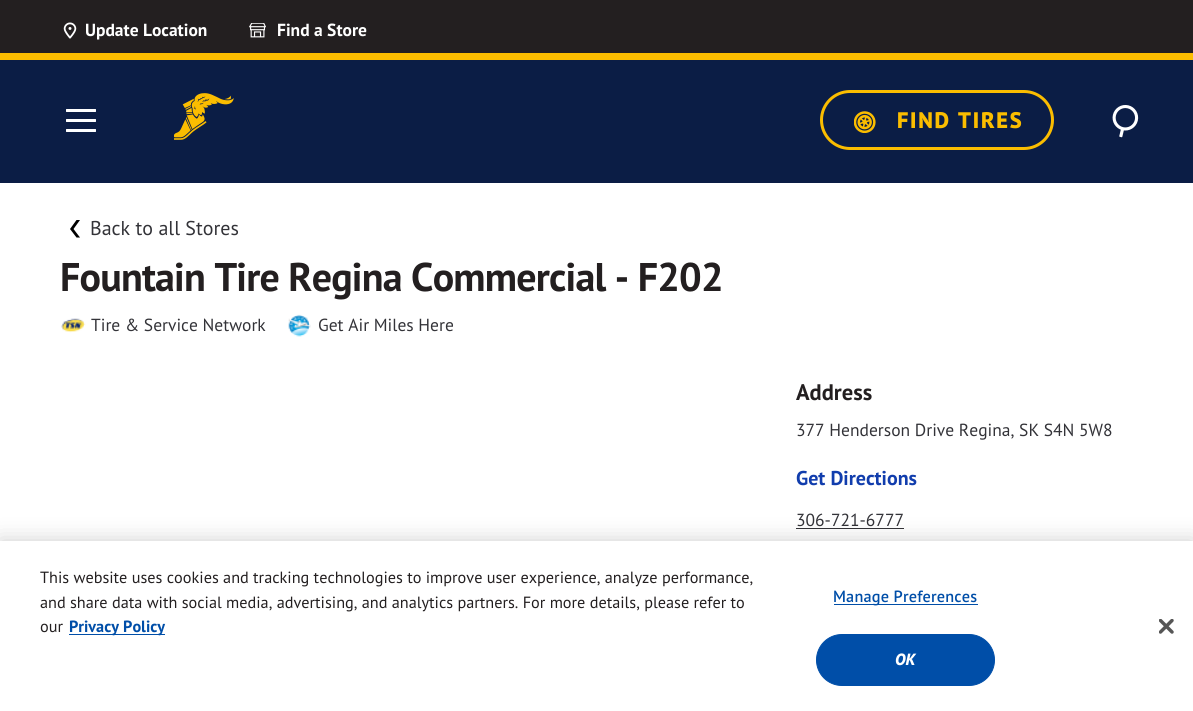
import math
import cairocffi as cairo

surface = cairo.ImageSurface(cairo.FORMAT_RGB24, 1193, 711)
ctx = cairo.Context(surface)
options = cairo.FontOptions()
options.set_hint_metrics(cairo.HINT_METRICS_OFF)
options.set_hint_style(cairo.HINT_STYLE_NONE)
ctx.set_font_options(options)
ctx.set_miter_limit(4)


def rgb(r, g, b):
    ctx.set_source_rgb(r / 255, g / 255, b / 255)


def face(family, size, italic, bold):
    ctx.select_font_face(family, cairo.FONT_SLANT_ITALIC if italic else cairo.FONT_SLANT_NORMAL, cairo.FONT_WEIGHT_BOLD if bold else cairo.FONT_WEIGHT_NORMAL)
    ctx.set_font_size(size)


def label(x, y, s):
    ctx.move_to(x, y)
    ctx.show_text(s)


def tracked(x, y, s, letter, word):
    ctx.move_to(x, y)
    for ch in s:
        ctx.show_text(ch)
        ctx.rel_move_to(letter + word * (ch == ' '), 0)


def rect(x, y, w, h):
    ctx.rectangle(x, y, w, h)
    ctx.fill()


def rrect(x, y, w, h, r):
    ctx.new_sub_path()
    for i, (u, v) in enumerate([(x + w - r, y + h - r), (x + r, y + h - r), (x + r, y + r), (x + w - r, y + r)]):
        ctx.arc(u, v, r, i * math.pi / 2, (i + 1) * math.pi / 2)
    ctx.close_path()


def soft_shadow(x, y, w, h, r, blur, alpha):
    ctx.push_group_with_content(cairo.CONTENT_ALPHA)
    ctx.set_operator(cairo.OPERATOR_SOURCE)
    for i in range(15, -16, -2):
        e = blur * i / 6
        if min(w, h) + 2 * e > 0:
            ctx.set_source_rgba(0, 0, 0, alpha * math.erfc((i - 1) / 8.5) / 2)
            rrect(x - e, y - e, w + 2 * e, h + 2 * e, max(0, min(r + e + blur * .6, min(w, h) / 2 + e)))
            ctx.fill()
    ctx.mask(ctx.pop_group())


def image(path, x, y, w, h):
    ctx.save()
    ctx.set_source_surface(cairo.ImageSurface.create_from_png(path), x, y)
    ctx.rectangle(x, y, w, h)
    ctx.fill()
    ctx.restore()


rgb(255, 255, 255)
ctx.paint()
rgb(35, 31, 32)
rect(0, 0, 1193, 53)
rgb(251, 189, 0)
rect(0, 53, 1193, 7)
image('image0.png', 63, 22, 14, 17)
face('PT Sans', 17.5, 0, 1)
rgb(255, 255, 255)
label(85, 36, 'Update Location')
image('image1.png', 249, 23, 17, 15)
label(277, 36, 'Find a Store')
rgb(11, 29, 69)
rect(0, 60, 1193, 123)
rgb(255, 255, 255)
rrect(66, 109, 30, 3, 0.5)
ctx.fill()
rrect(66, 119, 30, 3, 0.5)
ctx.fill()
rrect(66, 129, 30, 3, 0.5)
ctx.fill()
image('image2.png', 174, 93, 60, 47)
rrect(821.5, 91.5, 231, 57, 28.5)
rgb(251, 189, 0)
ctx.set_line_width(3)
ctx.stroke()
image('image3.png', 854, 111, 22, 22)
face('PT Sans ExtraBold', 22.5, 0, 0)
tracked(897, 128, 'FIND TIRES', 1.75, 0)
image('image4.png', 1112, 105, 27, 33)
rgb(0, 0, 0)
ctx.new_path()
ctx.move_to(80, 220)
ctx.line_to(76.5, 220)
ctx.line_to(70, 229)
ctx.line_to(76.5, 237.5)
ctx.line_to(80, 237.5)
ctx.line_to(73.5, 229)
ctx.close_path()
ctx.fill()
face('PT Sans', 20, 0, 0)
rgb(51, 51, 56)
label(90, 235, 'Back to all Stores')
face('PT Sans', 40, 0, 1)
rgb(35, 31, 32)
tracked(60, 291, 'Fountain Tire Regina Commercial - F202', -0.8, 0)
image('image5.png', 61, 318, 25, 15)
face('PT Sans', 17.5, 0, 0)
rgb(51, 51, 56)
label(91, 331, 'Tire & Service Network')
image('image6.png', 288, 314, 23, 23)
label(318, 331, 'Get Air Miles Here')
face('PT Sans', 22.5, 0, 1)
rgb(35, 31, 32)
label(796, 400, 'Address')
face('PT Sans', 17.5, 0, 0)
rgb(51, 51, 56)
label(796, 436, '377 Henderson Drive Regina, SK S4N 5W8')
face('PT Sans', 20, 0, 1)
rgb(17, 61, 173)
label(796, 485, 'Get Directions')
face('PT Sans', 17.5, 0, 0)
rgb(51, 51, 56)
label(796, 526, '306-721-6777')
rect(796, 528, 108, 1)
rgb(0, 0, 0)
soft_shadow(0, 541, 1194, 170, 0, 11, 0.2)
rgb(255, 255, 255)
rect(0, 541, 1193, 170)
face('PT Sans', 16.25, 0, 0)
rgb(35, 31, 32)
label(40, 583, 'This website uses cookies and tracking technologies to improve user experience, analyze performance,')
label(40, 608, 'and share data with social media, advertising, and analytics partners. For more details, please refer to')
label(40, 632, 'our')
rgb(0, 78, 168)
rect(69, 634, 96, 1)
face('PT Sans', 16.25, 0, 1)
label(69, 632, 'Privacy Policy')
rect(834, 604, 144, 1)
face('PT Sans SemiBold', 16.25, 0, 0)
tracked(833, 602, 'Manage Preferences', 0.2, 0)
rrect(816.5, 634.5, 178, 51, 25.5)
ctx.fill_preserve()
ctx.set_line_width(1)
ctx.stroke()
face('PT Sans ExtraBold', 16.25, 1, 0)
rgb(255, 255, 255)
tracked(895, 665, 'OK', 0.2, 0)
image('image7.png', 1159, 619, 15, 15)
surface.write_to_png('render.png')
